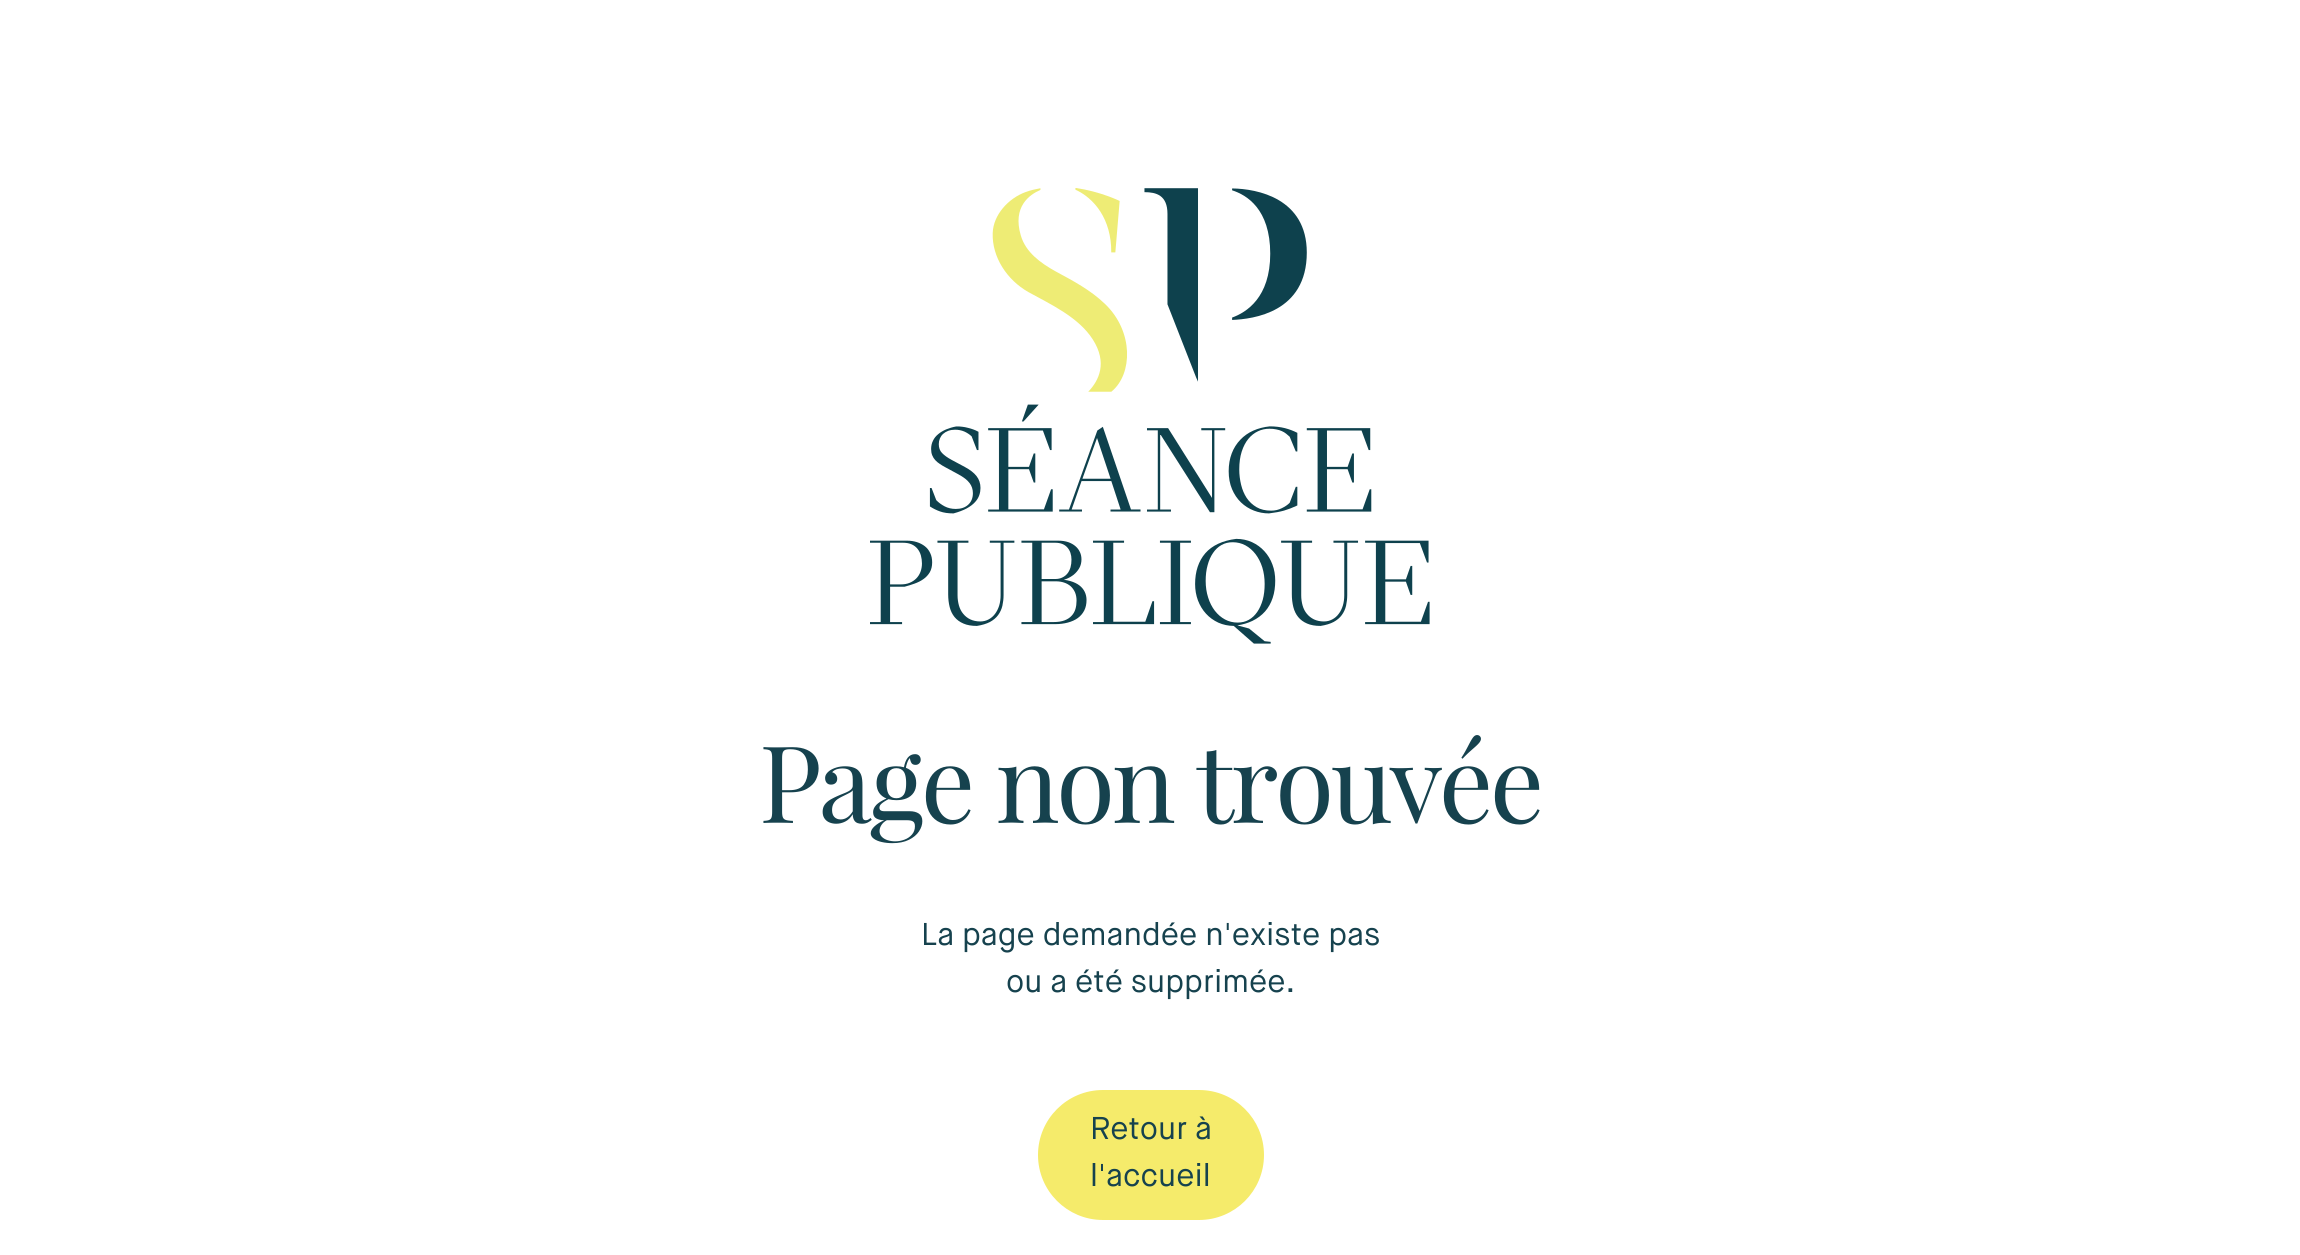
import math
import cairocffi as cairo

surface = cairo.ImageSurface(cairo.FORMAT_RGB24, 2300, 1255)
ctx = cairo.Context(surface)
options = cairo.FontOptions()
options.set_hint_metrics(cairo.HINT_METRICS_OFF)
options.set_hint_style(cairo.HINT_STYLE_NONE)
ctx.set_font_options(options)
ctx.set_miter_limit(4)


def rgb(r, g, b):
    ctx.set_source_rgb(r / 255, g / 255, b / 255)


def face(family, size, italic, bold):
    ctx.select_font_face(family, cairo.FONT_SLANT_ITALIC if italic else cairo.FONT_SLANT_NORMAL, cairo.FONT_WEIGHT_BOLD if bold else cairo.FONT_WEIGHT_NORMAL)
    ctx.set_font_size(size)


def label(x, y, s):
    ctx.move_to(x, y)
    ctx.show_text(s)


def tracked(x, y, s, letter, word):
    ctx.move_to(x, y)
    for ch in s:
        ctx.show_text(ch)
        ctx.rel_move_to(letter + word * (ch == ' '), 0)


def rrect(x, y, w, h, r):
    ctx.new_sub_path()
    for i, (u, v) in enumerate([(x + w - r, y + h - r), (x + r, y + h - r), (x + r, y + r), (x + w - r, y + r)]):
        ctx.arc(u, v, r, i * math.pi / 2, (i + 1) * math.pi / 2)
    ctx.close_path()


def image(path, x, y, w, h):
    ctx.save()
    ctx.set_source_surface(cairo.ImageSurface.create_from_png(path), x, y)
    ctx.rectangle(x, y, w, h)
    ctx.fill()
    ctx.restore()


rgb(255, 255, 255)
ctx.paint()
image('image0.png', 870, 188, 560, 456)
face('Playfair Display', 107.25, 0, 0)
rgb(22, 66, 78)
tracked(759, 823, 'Page non trouvée', -3.25, 0)
face('Maison Neue', 31.5, 0, 0)
label(921, 945, 'La page demandée n\'existe pas')
label(1006, 992, 'ou a été supprimée.')
rgb(245, 235, 107)
rrect(1039, 1091, 224, 128, 64)
ctx.fill_preserve()
ctx.stroke()
rgb(22, 66, 78)
label(1090, 1139, 'Retour à')
label(1090, 1186, 'l\'accueil')
surface.write_to_png('render.png')
